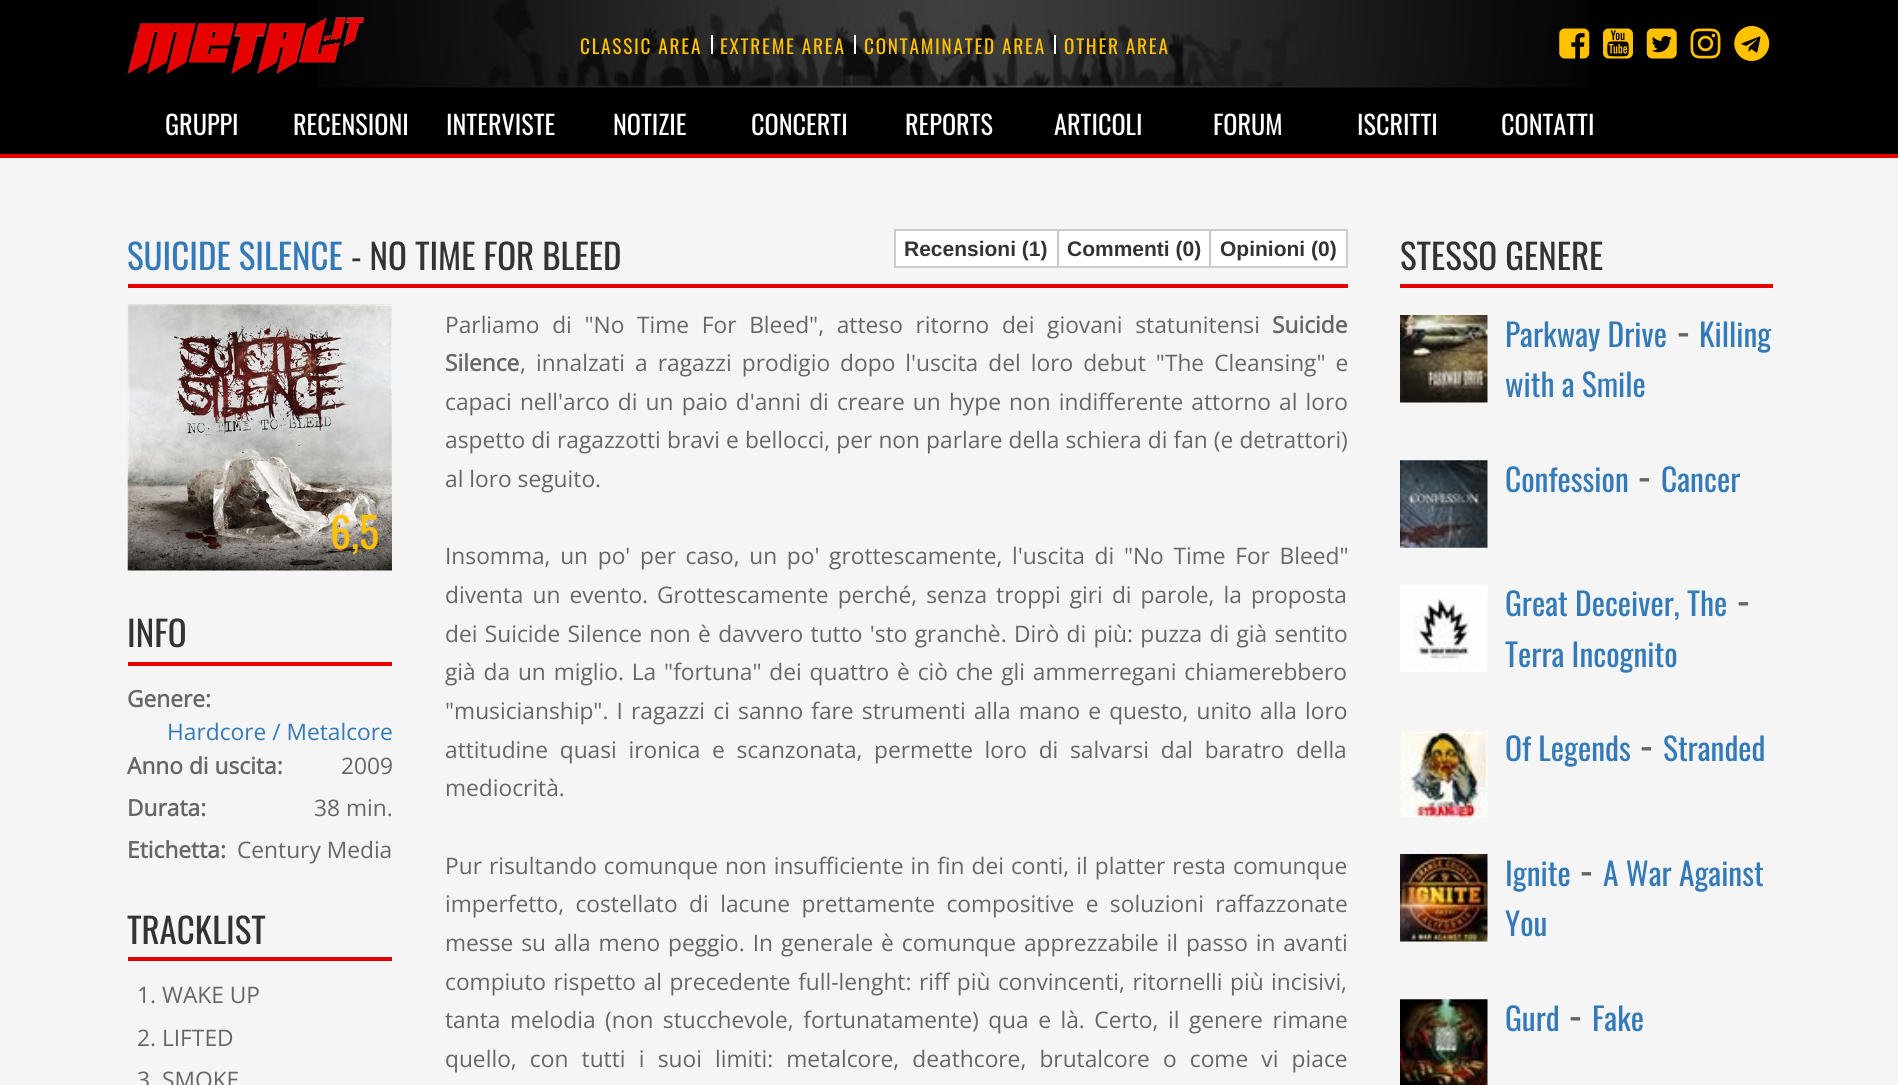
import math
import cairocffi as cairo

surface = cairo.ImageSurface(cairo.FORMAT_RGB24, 1898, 1085)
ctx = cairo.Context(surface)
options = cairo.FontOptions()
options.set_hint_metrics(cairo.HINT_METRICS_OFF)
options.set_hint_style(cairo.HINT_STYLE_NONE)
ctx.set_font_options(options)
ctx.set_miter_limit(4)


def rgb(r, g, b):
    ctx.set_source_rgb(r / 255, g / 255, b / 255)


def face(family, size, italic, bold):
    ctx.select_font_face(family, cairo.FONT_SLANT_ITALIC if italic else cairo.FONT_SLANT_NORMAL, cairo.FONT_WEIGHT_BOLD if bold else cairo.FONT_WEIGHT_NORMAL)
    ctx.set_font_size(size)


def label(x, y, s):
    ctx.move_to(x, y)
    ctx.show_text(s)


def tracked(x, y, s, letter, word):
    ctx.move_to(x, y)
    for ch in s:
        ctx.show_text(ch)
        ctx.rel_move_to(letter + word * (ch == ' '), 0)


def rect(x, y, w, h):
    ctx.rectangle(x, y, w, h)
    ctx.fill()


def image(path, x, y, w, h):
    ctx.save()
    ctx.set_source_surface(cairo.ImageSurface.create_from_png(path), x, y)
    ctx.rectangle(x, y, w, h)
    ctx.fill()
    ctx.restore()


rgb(245, 245, 245)
ctx.paint()
rgb(0, 0, 0)
rect(0, 0, 1898, 154)
image('image0.png', 318, 0, 1270, 88)
rgb(231, 0, 0)
rect(0, 154, 1898, 4)
image('image1.png', 127, 17, 237, 57)
face('Oswald', 19.25, 0, 0)
rgb(255, 193, 0)
tracked(580, 54, 'CLASSIC AREA', 1.75, 0)
rgb(255, 255, 255)
rect(711, 35, 2, 19)
rgb(255, 193, 0)
tracked(720, 54, 'EXTREME AREA', 1.75, 0)
rgb(255, 255, 255)
rect(854, 35, 2, 19)
rgb(255, 193, 0)
tracked(864, 54, 'CONTAMINATED AREA', 1.75, 0)
rgb(255, 255, 255)
rect(1054, 35, 2, 19)
rgb(255, 193, 0)
tracked(1064, 54, 'OTHER AREA', 1.75, 0)
image('image2.png', 1559, 28, 31, 31)
image('image3.png', 1603, 28, 30, 31)
image('image4.png', 1646, 28, 31, 31)
image('image5.png', 1690, 28, 31, 31)
image('image6.png', 1734, 26, 36, 35)
face('Oswald', 26.25, 0, 0)
rgb(255, 255, 255)
label(165, 135, 'GRUPPI')
label(293, 135, 'RECENSIONI')
label(446, 135, 'INTERVISTE')
label(613, 135, 'NOTIZIE')
label(751, 135, 'CONCERTI')
label(905, 135, 'REPORTS')
label(1054, 135, 'ARTICOLI')
label(1213, 135, 'FORUM')
label(1357, 135, 'ISCRITTI')
label(1501, 135, 'CONTATTI')
rgb(231, 0, 0)
rect(128, 284, 1220, 4)
face('Oswald', 35, 0, 0)
rgb(51, 122, 183)
label(127, 270, 'SUICIDE SILENCE')
rgb(51, 51, 51)
label(351, 270, '- NO TIME FOR BLEED')
rgb(255, 255, 255)
ctx.rectangle(895, 230, 163, 37)
ctx.fill_preserve()
rgb(204, 204, 204)
ctx.stroke()
face('Liberation Sans', 21, 0, 1)
rgb(51, 51, 51)
label(904, 256, 'Recensioni (1)')
rgb(255, 255, 255)
ctx.rectangle(1058, 230, 152, 37)
ctx.fill_preserve()
rgb(204, 204, 204)
ctx.stroke()
rgb(51, 51, 51)
label(1067, 256, 'Commenti (0)')
rgb(255, 255, 255)
ctx.rectangle(1210, 230, 137, 37)
ctx.fill_preserve()
rgb(204, 204, 204)
ctx.stroke()
rgb(51, 51, 51)
label(1220, 256, 'Opinioni (0)')
image('image7.png', 127, 304, 265, 267)
face('Oswald', 42, 0, 0)
rgb(255, 193, 0)
label(330, 549, '6,5')
rgb(231, 0, 0)
rect(128, 662, 264, 4)
face('Oswald', 35, 0, 0)
rgb(51, 51, 51)
label(127, 647, 'INFO')
face('Open Sans', 22.75, 0, 1)
rgb(102, 102, 102)
label(127, 707, 'Genere:')
face('Open Sans', 22.75, 0, 0)
rgb(51, 122, 183)
label(167, 740, 'Hardcore / Metalcore')
face('Open Sans', 22.75, 0, 1)
rgb(102, 102, 102)
label(127, 774, 'Anno di uscita:')
face('Open Sans', 22.75, 0, 0)
label(341, 774, '2009')
face('Open Sans', 22.75, 0, 1)
label(127, 816, 'Durata:')
face('Open Sans', 22.75, 0, 0)
label(314, 816, '38 min.')
face('Open Sans', 22.75, 0, 1)
label(127, 858, 'Etichetta:')
face('Open Sans', 22.75, 0, 0)
label(237, 858, 'Century Media')
rgb(231, 0, 0)
rect(128, 957, 264, 4)
face('Oswald', 35, 0, 0)
rgb(51, 51, 51)
label(127, 944, 'TRACKLIST')
face('Open Sans', 22.75, 0, 0)
rgb(102, 102, 102)
label(137, 1003, '1. WAKE UP')
label(137, 1046, '2. LIFTED')
label(137, 1088, '3')
label(162, 1088, 'SMOKE')
tracked(445, 333, 'Parliamo di "No Time For Bleed", atteso ritorno dei giovani statunitensi', 0, 6.75)
face('Open Sans', 22.75, 0, 1)
label(1272, 333, 'Suicide')
label(445, 371, 'Silence')
face('Open Sans', 22.75, 0, 0)
tracked(520, 371, ', innalzati a ragazzi prodigio dopo l\'uscita del loro debut "The Cleansing" e', 0, 4.1)
tracked(445, 410, 'capaci nell\'arco di un paio d\'anni di creare un hype non indifferente attorno al loro', 0, 2.25)
tracked(445, 448, 'aspetto di ragazzotti bravi e bellocci, per non parlare della schiera di fan (e detrattori)', 0, 0.2)
label(445, 487, 'al loro seguito.')
tracked(445, 564, 'Insomma, un po\' per caso, un po\' grottescamente, l\'uscita di "No Time For Bleed"', 0, 3.75)
tracked(445, 603, 'diventa un evento. Grottescamente perché, senza troppi giri di parole, la proposta', 0, 3.1)
tracked(445, 642, 'dei Suicide Silence non è davvero tutto \'sto granchè. Dirò di più: puzza di già sentito', 0, 1.4)
tracked(445, 680, 'già da un miglio. La "fortuna" dei quattro è ciò che gli ammerregani chiamerebbero', 0, 1.9)
tracked(445, 719, '"musicianship". I ragazzi ci sanno fare strumenti alla mano e questo, unito alla loro', 0, 2.25)
tracked(445, 758, 'attitudine quasi ironica e scanzonata, permette loro di salvarsi dal baratro della', 0, 5.75)
label(445, 796, 'mediocrità.')
tracked(445, 874, 'Pur risultando comunque non insufficiente in fin dei conti, il platter resta comunque', 0, 1.1)
tracked(445, 912, 'imperfetto, costellato di lacune prettamente compositive e soluzioni raffazzonate', 0, 5.5)
tracked(445, 951, 'messe su alla meno peggio. In generale è comunque apprezzabile il passo in avanti', 0, 2)
tracked(445, 990, 'compiuto rispetto al precedente full-lenght: riff più convincenti, ritornelli più incisivi,', 0, 1.6)
tracked(445, 1028, 'tanta melodia (non stucchevole, fortunatamente) qua e là. Certo, il genere rimane', 0, 3.6)
tracked(445, 1067, 'quello, con tutti i suoi limiti: metalcore, deathcore, brutalcore o come vi piace', 0, 7.25)
rgb(231, 0, 0)
rect(1400, 284, 373, 4)
face('Oswald', 35, 0, 0)
rgb(51, 51, 51)
label(1400, 270, 'STESSO GENERE')
image('image8.png', 1400, 315, 88, 88)
face('Oswald', 31.5, 0, 0)
rgb(51, 122, 183)
label(1505, 347, 'Parkway Drive')
face('Oswald', 42, 0, 0)
rgb(102, 102, 102)
label(1677, 347, '-')
face('Oswald', 31.5, 0, 0)
rgb(51, 122, 183)
label(1699, 347, 'Killing')
label(1505, 397, 'with a Smile')
image('image9.png', 1400, 460, 88, 88)
label(1505, 492, 'Confession')
face('Oswald', 42, 0, 0)
rgb(102, 102, 102)
label(1638, 492, '-')
face('Oswald', 31.5, 0, 0)
rgb(51, 122, 183)
label(1661, 492, 'Cancer')
image('image10.png', 1400, 584, 88, 88)
label(1505, 616, 'Great Deceiver, The')
face('Oswald', 42, 0, 0)
rgb(102, 102, 102)
label(1737, 616, '-')
face('Oswald', 31.5, 0, 0)
rgb(51, 122, 183)
label(1505, 667, 'Terra Incognito')
image('image11.png', 1400, 729, 88, 89)
label(1505, 761, 'Of Legends')
face('Oswald', 42, 0, 0)
rgb(102, 102, 102)
label(1640, 761, '-')
face('Oswald', 31.5, 0, 0)
rgb(51, 122, 183)
label(1663, 761, 'Stranded')
image('image12.png', 1400, 854, 88, 88)
label(1505, 886, 'Ignite')
face('Oswald', 42, 0, 0)
rgb(102, 102, 102)
label(1580, 886, '-')
face('Oswald', 31.5, 0, 0)
rgb(51, 122, 183)
label(1603, 886, 'A War Against')
label(1505, 936, 'You')
image('image13.png', 1400, 999, 88, 86)
label(1505, 1031, 'Gurd')
face('Oswald', 42, 0, 0)
rgb(102, 102, 102)
label(1569, 1031, '-')
face('Oswald', 31.5, 0, 0)
rgb(51, 122, 183)
label(1592, 1031, 'Fake')
surface.write_to_png('render.png')
